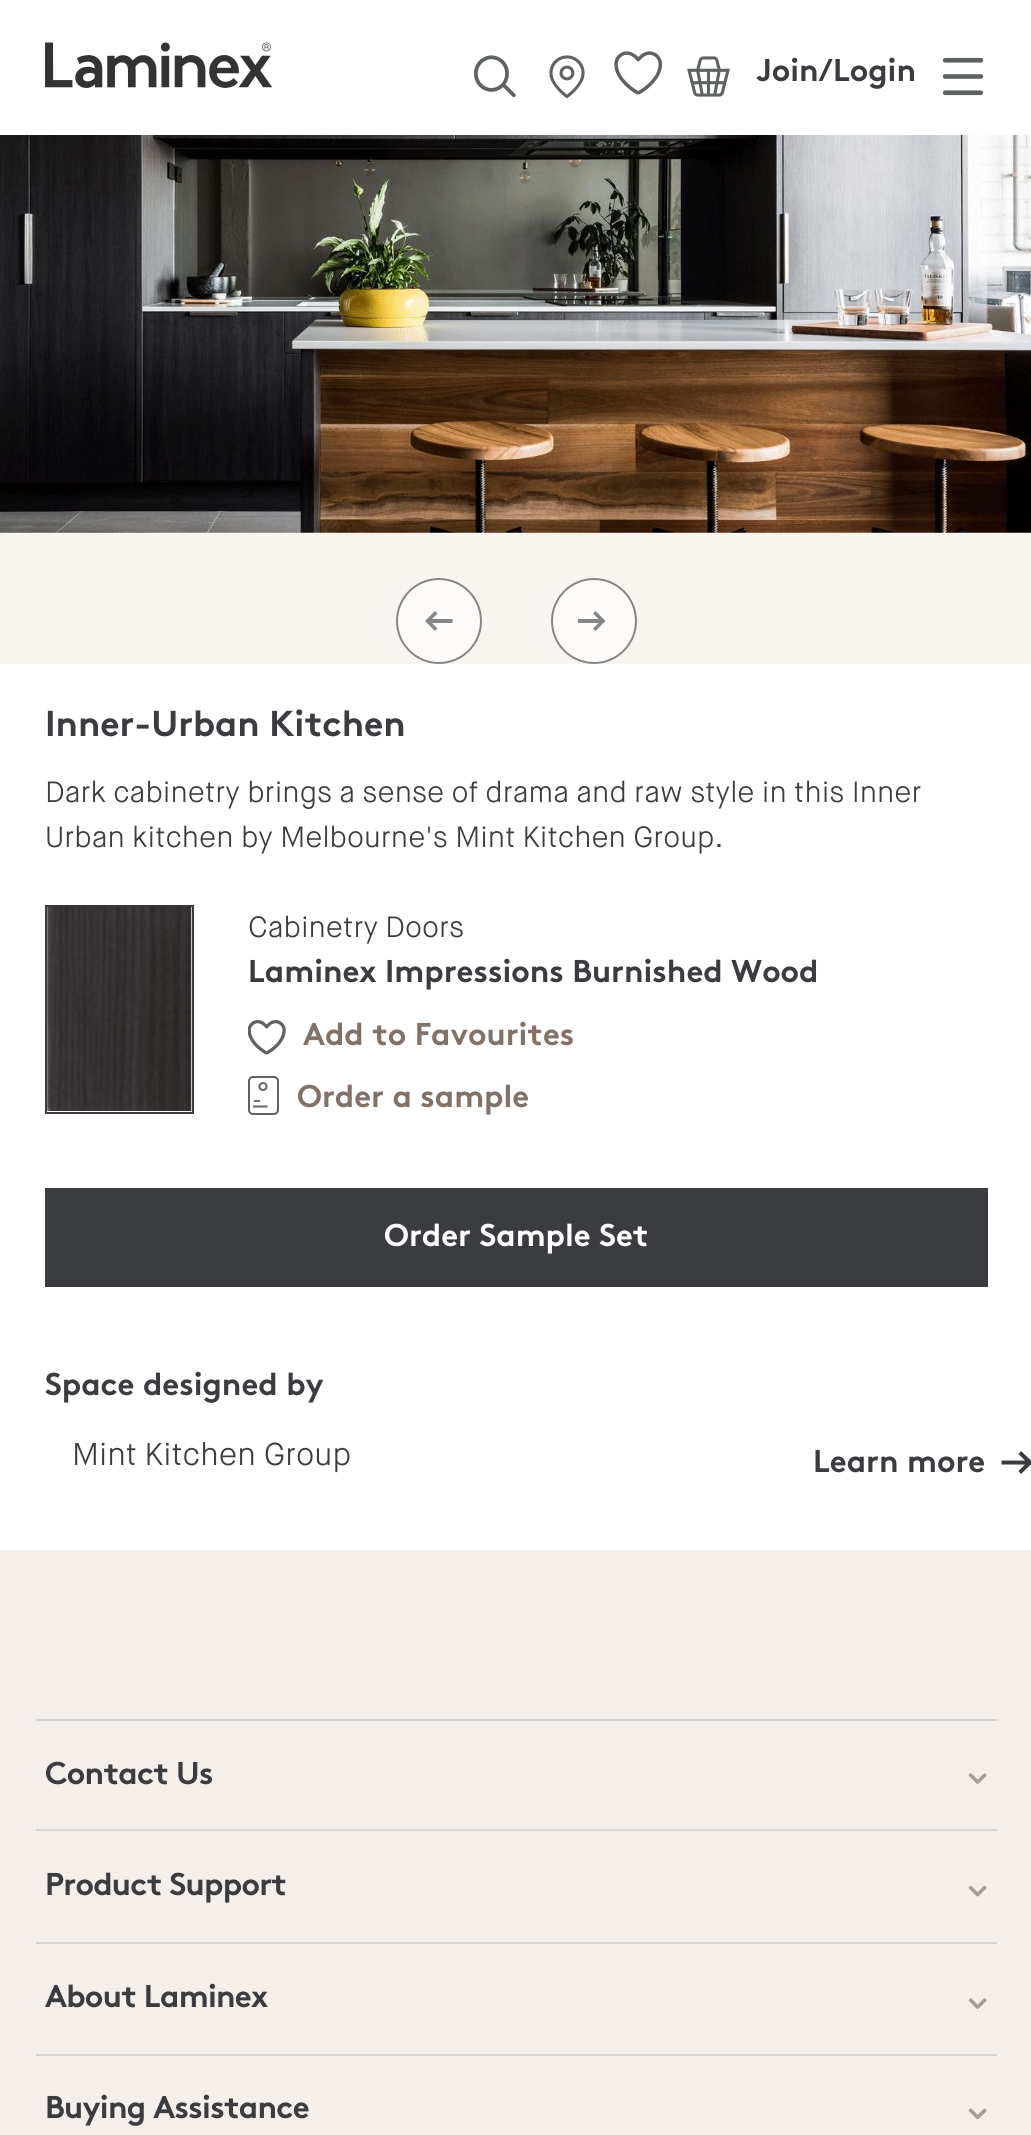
import math
import cairocffi as cairo

surface = cairo.ImageSurface(cairo.FORMAT_RGB24, 1031, 2135)
ctx = cairo.Context(surface)
options = cairo.FontOptions()
options.set_hint_metrics(cairo.HINT_METRICS_OFF)
options.set_hint_style(cairo.HINT_STYLE_NONE)
ctx.set_font_options(options)
ctx.set_miter_limit(4)


def rgb(r, g, b):
    ctx.set_source_rgb(r / 255, g / 255, b / 255)


def face(family, size, italic, bold):
    ctx.select_font_face(family, cairo.FONT_SLANT_ITALIC if italic else cairo.FONT_SLANT_NORMAL, cairo.FONT_WEIGHT_BOLD if bold else cairo.FONT_WEIGHT_NORMAL)
    ctx.set_font_size(size)


def label(x, y, s):
    ctx.move_to(x, y)
    ctx.show_text(s)


def tracked(x, y, s, letter, word):
    ctx.move_to(x, y)
    for ch in s:
        ctx.show_text(ch)
        ctx.rel_move_to(letter + word * (ch == ' '), 0)


def rect(x, y, w, h):
    ctx.rectangle(x, y, w, h)
    ctx.fill()


def rrect(x, y, w, h, r):
    ctx.new_sub_path()
    for i, (u, v) in enumerate([(x + w - r, y + h - r), (x + r, y + h - r), (x + r, y + r), (x + w - r, y + r)]):
        ctx.arc(u, v, r, i * math.pi / 2, (i + 1) * math.pi / 2)
    ctx.close_path()


def image(path, x, y, w, h):
    ctx.save()
    ctx.set_source_surface(cairo.ImageSurface.create_from_png(path), x, y)
    ctx.rectangle(x, y, w, h)
    ctx.fill()
    ctx.restore()


rgb(255, 255, 255)
ctx.paint()
image('image0.png', 45, 42, 227, 46)
image('image1.png', 474, 55, 42, 43)
image('image2.png', 549, 55, 36, 44)
image('image3.png', 614, 51, 49, 44)
image('image4.png', 687, 56, 43, 41)
face('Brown', 31.5, 0, 1)
rgb(59, 60, 64)
label(756, 81, 'Join/Login')
image('image5.png', 942, 57, 42, 39)
rgb(248, 245, 241)
rect(0, 532, 1031, 132)
image('image6.png', 0, 135, 1031, 398)
rgb(252, 251, 249)
ctx.arc(439, 621, 42, 0, 2 * math.pi)
ctx.fill_preserve()
rgb(135, 134, 135)
ctx.stroke()
ctx.new_path()
ctx.move_to(437.5, 628.5)
ctx.line_to(435, 631)
ctx.line_to(425, 621)
ctx.line_to(435, 611)
ctx.line_to(437.5, 613.5)
ctx.line_to(432, 619)
ctx.line_to(452.5, 619)
ctx.line_to(452.5, 623)
ctx.line_to(432, 623)
ctx.close_path()
ctx.fill()
rgb(252, 251, 249)
ctx.arc(594, 621, 42, 0, 2 * math.pi)
ctx.fill_preserve()
rgb(135, 134, 135)
ctx.stroke()
ctx.new_path()
ctx.move_to(598.5, 623)
ctx.line_to(578, 623)
ctx.line_to(578, 619)
ctx.line_to(598.5, 619)
ctx.line_to(593, 613.5)
ctx.line_to(595.5, 611)
ctx.line_to(605.5, 621)
ctx.line_to(595.5, 631)
ctx.line_to(593, 628.5)
ctx.close_path()
ctx.fill()
face('Brown', 36, 0, 1)
rgb(59, 60, 64)
label(45, 736, 'Inner-Urban Kitchen')
face('Maison Neue Light', 29.25, 0, 0)
label(45, 802, 'Dark cabinetry brings a sense of drama and raw style in this Inner')
label(45, 847, 'Urban kitchen by Melbourne\'s Mint Kitchen Group.')
ctx.rectangle(46, 906, 147, 207)
ctx.stroke()
image('image7.png', 47, 906, 145, 205)
label(248, 937, 'Cabinetry Doors')
face('Brown', 31.5, 0, 1)
label(248, 982, 'Laminex Impressions Burnished Wood')
image('image8.png', 248, 1020, 38, 35)
rgb(130, 113, 103)
label(303, 1045, 'Add to Favourites')
rrect(249, 1077, 29, 37, 4)
rgb(94, 98, 99)
ctx.stroke()
rgb(112, 112, 112)
rect(254, 1100, 6, 2)
ctx.arc(263, 1086.5, 3.5, 0, 2 * math.pi)
ctx.set_line_width(2.2)
ctx.stroke()
rgb(130, 113, 103)
label(297, 1107, 'Order a sample')
ctx.new_path()
ctx.move_to(253, 1106.5)
ctx.line_to(267.5, 1106.5)
rgb(112, 112, 112)
ctx.stroke()
rgb(59, 60, 64)
rect(45, 1188, 943, 99)
rgb(255, 255, 255)
label(384, 1246, 'Order Sample Set')
rgb(59, 60, 64)
label(45, 1395, 'Space designed by')
face('Maison Neue Light', 31.5, 0, 0)
label(72, 1465, 'Mint Kitchen Group')
face('Brown', 31.5, 0, 1)
label(813, 1472, 'Learn more')
ctx.new_path()
ctx.move_to(1025, 1464.5)
ctx.line_to(1001.5, 1464.5)
ctx.line_to(1001.5, 1460.5)
ctx.line_to(1025, 1460.5)
ctx.line_to(1018.5, 1454)
ctx.line_to(1021, 1451)
ctx.line_to(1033, 1462.5)
ctx.line_to(1021, 1474)
ctx.line_to(1018.5, 1471)
ctx.close_path()
ctx.fill()
rgb(244, 239, 234)
rect(0, 1550, 1031, 585)
rgb(213, 213, 213)
rect(36, 1719, 961, 2)
rgb(59, 60, 64)
tracked(45, 1784, 'Contact Us', -0.7, 0)
image('image9.png', 968, 1773, 19, 11)
rgb(213, 213, 213)
rect(36, 1829, 961, 2)
rgb(59, 60, 64)
tracked(45, 1895, 'Product Support', -0.7, 0)
image('image10.png', 968, 1885, 19, 12)
rgb(213, 213, 213)
rect(36, 1942, 961, 2)
rgb(59, 60, 64)
tracked(45, 2007, 'About Laminex', -0.7, 0)
image('image9.png', 968, 1998, 19, 11)
rgb(213, 213, 213)
rect(36, 2054, 961, 2)
rgb(59, 60, 64)
tracked(45, 2118, 'Buying Assistance', -0.7, 0)
image('image11.png', 968, 2108, 19, 12)
surface.write_to_png('render.png')
